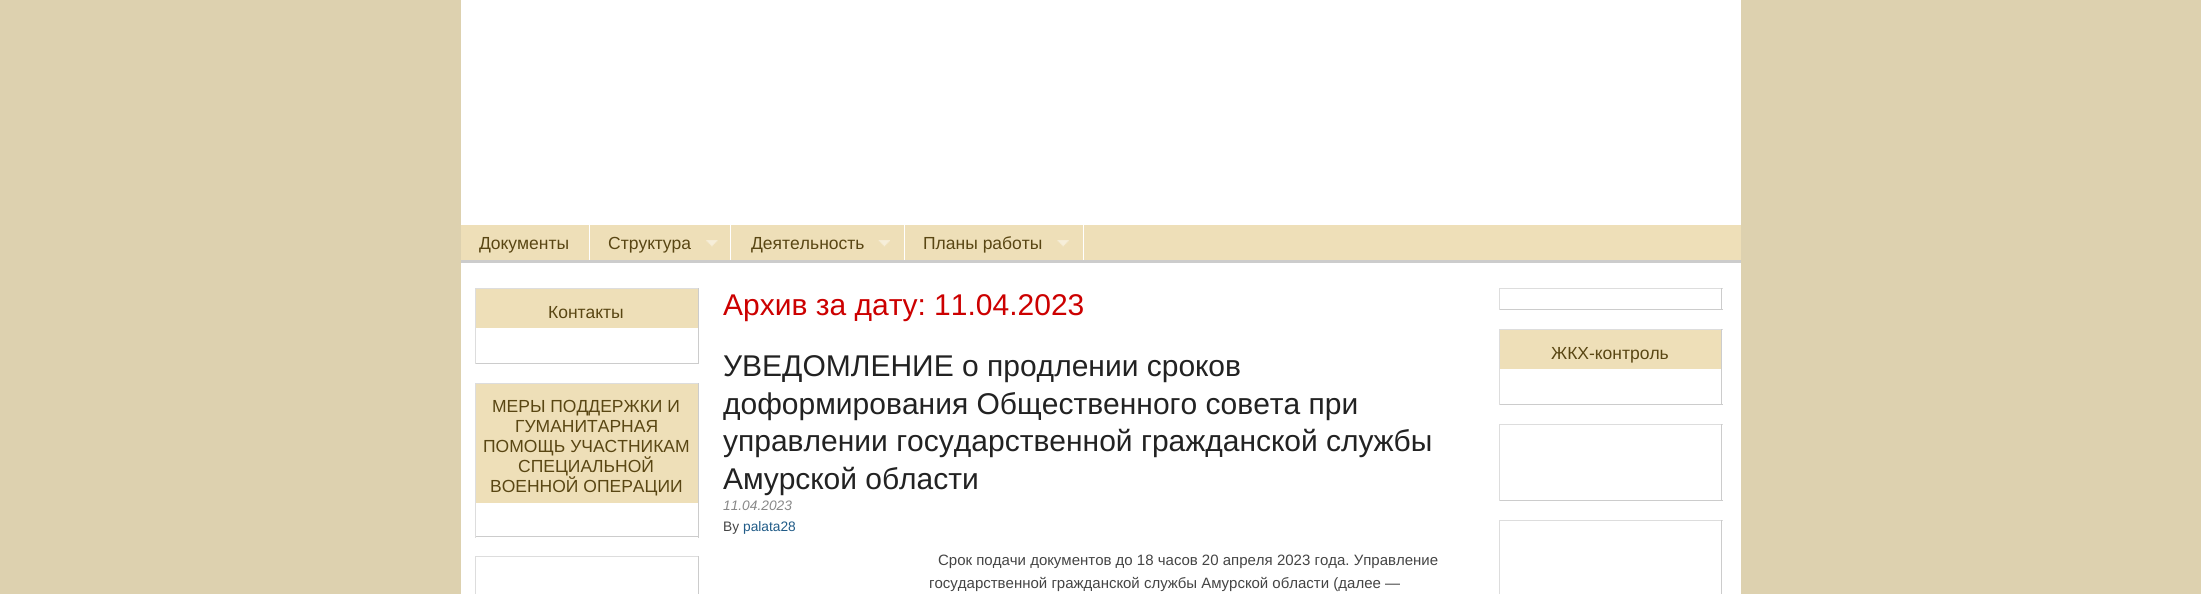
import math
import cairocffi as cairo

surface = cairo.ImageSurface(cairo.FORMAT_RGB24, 2201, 594)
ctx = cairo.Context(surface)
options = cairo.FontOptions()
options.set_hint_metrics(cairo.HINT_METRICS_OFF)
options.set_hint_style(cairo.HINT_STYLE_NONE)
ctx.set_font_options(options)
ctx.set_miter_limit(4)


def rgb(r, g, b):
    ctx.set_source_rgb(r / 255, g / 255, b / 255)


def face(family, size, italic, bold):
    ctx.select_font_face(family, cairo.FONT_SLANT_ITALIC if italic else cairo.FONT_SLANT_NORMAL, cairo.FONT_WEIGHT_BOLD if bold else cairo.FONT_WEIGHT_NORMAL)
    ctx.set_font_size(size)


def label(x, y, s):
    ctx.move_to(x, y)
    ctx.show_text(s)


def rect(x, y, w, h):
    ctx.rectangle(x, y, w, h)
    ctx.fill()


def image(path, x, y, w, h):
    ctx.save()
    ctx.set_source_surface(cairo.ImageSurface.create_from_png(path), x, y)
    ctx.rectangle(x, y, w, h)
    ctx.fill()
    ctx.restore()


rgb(221, 209, 175)
ctx.paint()
rgb(255, 255, 255)
rect(461, 0, 1280, 225)
rgb(238, 223, 184)
rect(461, 225, 1280, 35)
rgb(255, 255, 255)
rect(589, 225, 1, 35)
face('Liberation Sans', 17.5, 0, 0)
rgb(89, 70, 19)
label(479, 249, 'Документы')
rgb(255, 255, 255)
rect(730, 225, 1, 35)
rgb(89, 70, 19)
label(608, 249, 'Структура')
image('image0.png', 706, 240, 12, 7)
rgb(255, 255, 255)
rect(904, 225, 1, 35)
rgb(89, 70, 19)
label(751, 249, 'Деятельность')
image('image1.png', 878, 240, 12, 7)
rgb(255, 255, 255)
rect(1083, 225, 1, 35)
rgb(89, 70, 19)
label(923, 249, 'Планы работы')
image('image2.png', 1057, 240, 12, 7)
rgb(255, 255, 255)
rect(461, 263, 1280, 331)
rgb(204, 204, 204)
rect(461, 260, 1280, 3)
rgb(221, 221, 221)
rect(475, 288, 224, 1)
rgb(204, 204, 204)
rect(698, 288, 1, 76)
rect(475, 363, 224, 1)
rgb(221, 221, 221)
rect(475, 288, 1, 76)
rgb(238, 223, 184)
rect(476, 289, 222, 39)
rgb(89, 70, 19)
label(548, 318, 'Контакты')
rgb(221, 221, 221)
rect(475, 383, 224, 1)
rgb(204, 204, 204)
rect(698, 383, 1, 155)
rect(475, 536, 224, 1)
rgb(221, 221, 221)
rect(475, 383, 1, 155)
rgb(238, 223, 184)
rect(476, 384, 222, 119)
rgb(89, 70, 19)
label(492, 412, 'МЕРЫ ПОДДЕРЖКИ И')
label(515, 432, 'ГУМАНИТАРНАЯ')
label(483, 452, 'ПОМОЩЬ УЧАСТНИКАМ')
label(518, 472, 'СПЕЦИАЛЬНОЙ')
label(490, 492, 'ВОЕННОЙ ОПЕРАЦИИ')
rgb(221, 221, 221)
rect(475, 556, 224, 1)
rgb(204, 204, 204)
rect(698, 556, 1, 38)
rgb(221, 221, 221)
rect(475, 556, 1, 38)
face('Liberation Sans', 30, 0, 0)
rgb(204, 0, 0)
label(723, 315, 'Архив за дату: 11.04.2023')
rgb(34, 34, 34)
label(723, 376, 'УВЕДОМЛЕНИЕ о продлении сроков')
label(723, 414, 'доформирования Общественного совета при')
label(723, 451, 'управлении государственной гражданской службы')
label(723, 489, 'Амурской области')
face('Liberation Sans', 13.75, 1, 0)
rgb(136, 136, 136)
label(723, 510, '11.04.2023')
face('Liberation Sans', 13.75, 0, 0)
rgb(68, 68, 68)
label(723, 531, 'By')
rgb(32, 91, 135)
label(743, 531, 'palata28')
face('Liberation Sans', 15, 0, 0)
rgb(68, 68, 68)
label(938, 565, 'Срок подачи документов до 18 часов 20 апреля 2023 года. Управление')
label(929, 588, 'государственной гражданской службы Амурской области (далее —')
rgb(221, 221, 221)
rect(1499, 288, 224, 1)
rgb(204, 204, 204)
rect(1721, 288, 1, 22)
rect(1499, 309, 224, 1)
rgb(221, 221, 221)
rect(1499, 288, 1, 22)
rect(1499, 329, 224, 1)
rgb(204, 204, 204)
rect(1721, 329, 1, 76)
rect(1499, 404, 224, 1)
rgb(221, 221, 221)
rect(1499, 329, 1, 76)
rgb(238, 223, 184)
rect(1500, 330, 221, 39)
face('Liberation Sans', 17.5, 0, 0)
rgb(89, 70, 19)
label(1551, 359, 'ЖКХ-контроль')
rgb(221, 221, 221)
rect(1499, 424, 224, 1)
rgb(204, 204, 204)
rect(1721, 424, 1, 77)
rect(1499, 500, 224, 1)
rgb(221, 221, 221)
rect(1499, 424, 1, 77)
rect(1499, 520, 224, 1)
rgb(204, 204, 204)
rect(1721, 520, 1, 74)
rgb(221, 221, 221)
rect(1499, 520, 1, 74)
surface.write_to_png('render.png')
